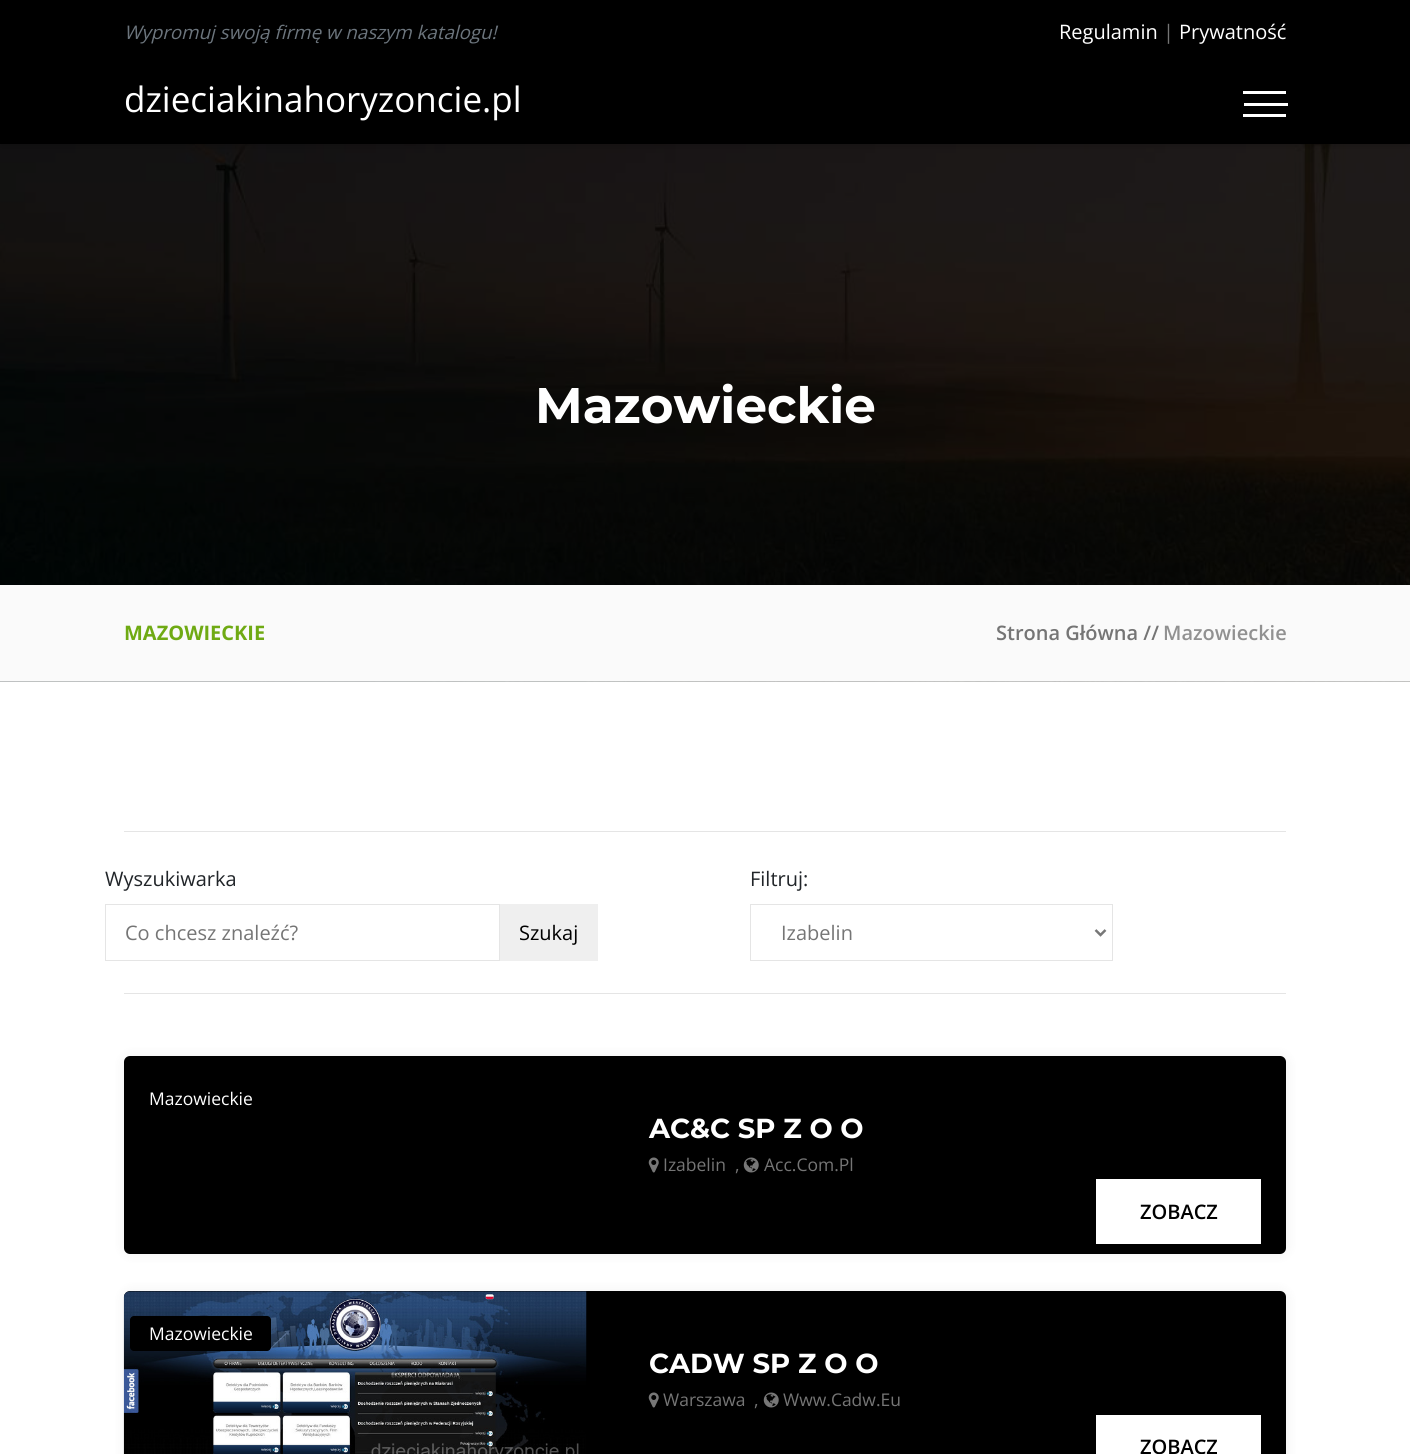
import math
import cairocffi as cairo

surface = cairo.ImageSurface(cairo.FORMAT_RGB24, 1410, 1454)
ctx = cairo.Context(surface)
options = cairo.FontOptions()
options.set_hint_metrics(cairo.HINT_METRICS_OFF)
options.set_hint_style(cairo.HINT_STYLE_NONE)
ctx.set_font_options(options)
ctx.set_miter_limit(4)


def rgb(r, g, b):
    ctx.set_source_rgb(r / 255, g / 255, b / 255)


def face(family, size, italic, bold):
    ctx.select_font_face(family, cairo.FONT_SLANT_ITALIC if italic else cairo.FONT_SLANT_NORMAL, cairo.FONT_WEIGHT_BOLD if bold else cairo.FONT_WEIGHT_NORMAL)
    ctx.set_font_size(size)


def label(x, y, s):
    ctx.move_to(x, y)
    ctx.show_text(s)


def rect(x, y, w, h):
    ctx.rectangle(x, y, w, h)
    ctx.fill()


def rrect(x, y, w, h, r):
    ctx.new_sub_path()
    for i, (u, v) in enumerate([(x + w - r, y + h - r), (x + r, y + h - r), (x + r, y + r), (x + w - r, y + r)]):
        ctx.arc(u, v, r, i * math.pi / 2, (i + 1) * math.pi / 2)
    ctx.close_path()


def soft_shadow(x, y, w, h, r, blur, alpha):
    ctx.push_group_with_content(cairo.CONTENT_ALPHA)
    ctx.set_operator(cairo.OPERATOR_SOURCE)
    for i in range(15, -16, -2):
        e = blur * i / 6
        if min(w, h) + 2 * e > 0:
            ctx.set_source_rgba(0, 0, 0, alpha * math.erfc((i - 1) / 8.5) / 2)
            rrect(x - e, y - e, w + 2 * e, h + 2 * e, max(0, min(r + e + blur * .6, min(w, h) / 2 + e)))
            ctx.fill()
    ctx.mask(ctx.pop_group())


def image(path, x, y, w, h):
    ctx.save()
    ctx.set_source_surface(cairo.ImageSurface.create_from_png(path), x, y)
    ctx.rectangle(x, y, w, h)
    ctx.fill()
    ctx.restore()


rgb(255, 255, 255)
ctx.paint()
rgb(0, 0, 0)
rect(0, 0, 1410, 64)
face('Open Sans', 18.75, 1, 0)
rgb(108, 117, 125)
label(124, 39, 'Wypromuj swoją firmę w naszym katalogu!')
face('Open Sans', 20, 0, 0)
rgb(255, 255, 255)
label(1059, 39, 'Regulamin')
rgb(117, 117, 117)
label(1163, 39, '|')
rgb(255, 255, 255)
label(1179, 39, 'Prywatność')
image('image0.png', 0, 144, 1410, 538)
rgb(0, 0, 0)
soft_shadow(0, 66, 1410, 80, 0, 3, 0.15)
rgb(0, 0, 0)
rect(0, 64, 1410, 80)
face('Open Sans', 35, 0, 0)
rgb(255, 255, 255)
label(124, 112, 'dzieciakinahoryzoncie.pl')
rect(1243, 91, 43, 3)
rect(1243, 114, 43, 3)
rect(1244, 103, 44, 3)
face('Montserrat', 50, 0, 1)
label(535, 423, 'Mazowieckie')
rgb(250, 250, 250)
rect(0, 585, 1410, 96)
face('Open Sans', 20, 0, 1)
rgb(111, 170, 19)
label(124, 640, 'MAZOWIECKIE')
face('Open Sans SemiBold', 20, 0, 0)
rgb(117, 117, 117)
label(996, 640, 'Strona Główna //')
rgb(145, 145, 145)
label(1163, 640, 'Mazowieckie')
rgb(229, 229, 229)
rect(124, 831, 1162, 1)
rect(124, 993, 1162, 1)
face('Open Sans', 20, 0, 0)
rgb(33, 37, 41)
label(105, 886, 'Wyszukiwarka')
ctx.rectangle(105.5, 904.5, 394, 56)
rgb(229, 229, 229)
ctx.set_line_width(1)
ctx.stroke()
rgb(117, 117, 117)
label(125, 940, 'Co chcesz znaleźć?')
rgb(239, 239, 239)
rect(500, 904, 98, 57)
rgb(0, 0, 0)
label(519, 940, 'Szukaj')
rgb(33, 37, 41)
label(750, 886, 'Filtruj:')
ctx.rectangle(750.5, 904.5, 362, 56)
rgb(229, 229, 229)
ctx.stroke()
ctx.new_path()
ctx.move_to(1095.5, 930)
ctx.line_to(1100.5, 935)
ctx.line_to(1105.5, 930)
rgb(119, 119, 119)
ctx.set_line_width(2.5)
ctx.stroke()
rgb(117, 117, 117)
label(781, 940, 'Izabelin')
rgb(0, 0, 0)
soft_shadow(123, 1055, 1165, 200, 8, 5.5, 0.05)
rgb(0, 0, 0)
rrect(124, 1056, 1162, 198, 6)
ctx.fill()
face('Open Sans', 17.5, 0, 0)
rgb(255, 255, 255)
label(149, 1105, 'Mazowieckie')
face('Montserrat', 27.5, 0, 1)
label(649, 1138, 'AC&C SP Z O O')
image('image1.png', 648, 1157, 11, 16)
face('Open Sans', 17.5, 0, 0)
rgb(117, 117, 117)
label(663, 1171, 'Izabelin')
label(735, 1171, ',')
image('image2.png', 743, 1157, 16, 16)
label(764, 1171, 'Acc.Com.Pl')
rgb(255, 255, 255)
rect(1096, 1179, 165, 65)
face('Open Sans SemiBold', 20, 0, 0)
rgb(0, 0, 0)
label(1140, 1219, 'ZOBACZ')
rgb(0, 0, 0)
soft_shadow(123, 1290, 1165, 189, 8, 5.5, 0.05)
rgb(0, 0, 0)
rrect(124, 1291, 1162, 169, 6)
ctx.fill()
image('image3.png', 123, 1291, 464, 163)
rrect(130, 1316, 141, 35, 4)
ctx.fill()
face('Open Sans', 17.5, 0, 0)
rgb(255, 255, 255)
label(149, 1340, 'Mazowieckie')
face('Montserrat', 27.5, 0, 1)
label(649, 1373, 'CADW SP Z O O')
image('image1.png', 648, 1392, 11, 16)
face('Open Sans', 17.5, 0, 0)
rgb(117, 117, 117)
label(663, 1406, 'Warszawa')
label(754, 1406, ',')
image('image2.png', 763, 1392, 16, 16)
label(783, 1406, 'Www.Cadw.Eu')
rgb(255, 255, 255)
rect(1096, 1415, 165, 39)
face('Open Sans SemiBold', 20, 0, 0)
rgb(0, 0, 0)
label(1140, 1454, 'ZOBACZ')
surface.write_to_png('render.png')
